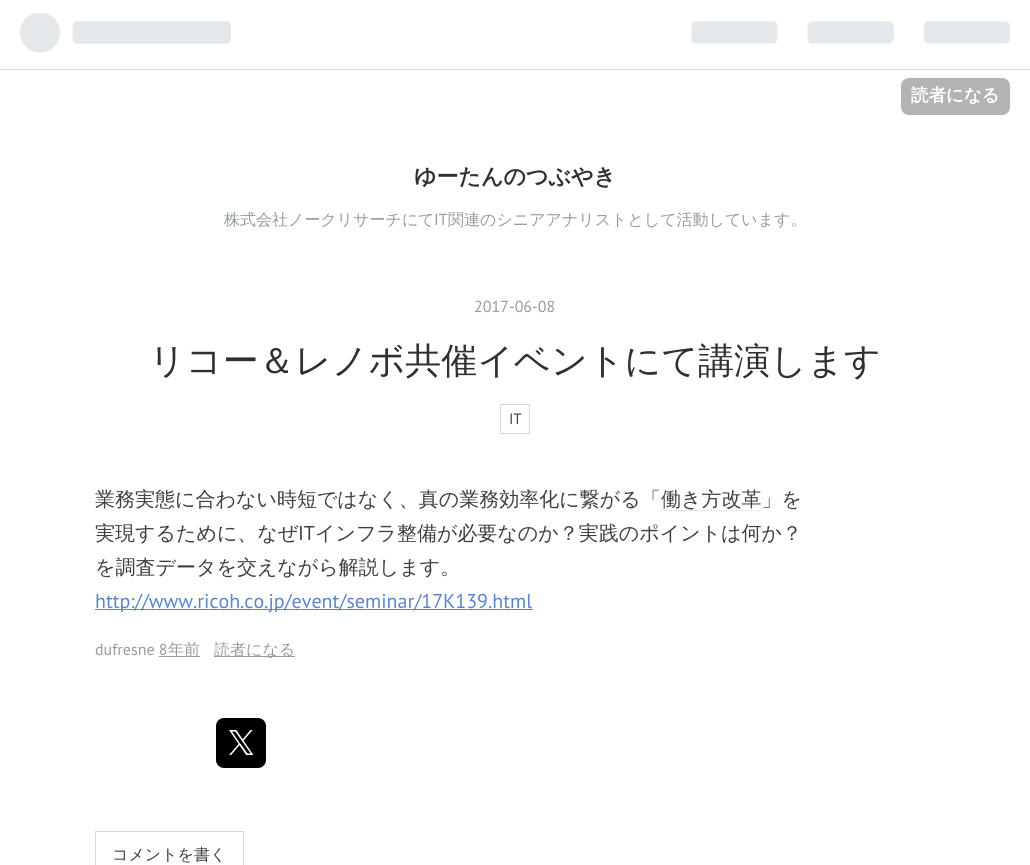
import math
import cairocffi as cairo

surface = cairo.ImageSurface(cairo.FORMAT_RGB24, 1030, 865)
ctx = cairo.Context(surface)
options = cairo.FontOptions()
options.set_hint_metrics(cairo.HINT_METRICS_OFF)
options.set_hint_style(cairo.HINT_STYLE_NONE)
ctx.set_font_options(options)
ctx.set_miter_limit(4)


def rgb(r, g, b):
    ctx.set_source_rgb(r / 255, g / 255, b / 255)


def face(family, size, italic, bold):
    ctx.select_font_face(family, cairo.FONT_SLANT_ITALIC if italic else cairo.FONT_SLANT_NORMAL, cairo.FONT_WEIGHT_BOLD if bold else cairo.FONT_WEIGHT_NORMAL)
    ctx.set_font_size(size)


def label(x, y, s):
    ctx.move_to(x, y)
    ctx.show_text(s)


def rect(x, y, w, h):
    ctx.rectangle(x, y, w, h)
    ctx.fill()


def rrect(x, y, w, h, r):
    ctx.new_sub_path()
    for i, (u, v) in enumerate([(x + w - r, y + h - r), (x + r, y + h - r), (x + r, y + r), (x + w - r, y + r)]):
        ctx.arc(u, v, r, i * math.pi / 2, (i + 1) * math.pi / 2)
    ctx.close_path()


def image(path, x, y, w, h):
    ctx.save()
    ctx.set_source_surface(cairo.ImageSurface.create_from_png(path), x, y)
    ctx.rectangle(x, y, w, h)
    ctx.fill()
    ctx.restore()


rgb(255, 255, 255)
ctx.paint()
rgb(210, 216, 221)
rect(0, 69, 1030, 1)
image('image0.png', 20, 13, 211, 40)
image('image1.png', 691, 21, 319, 23)
rgb(177, 179, 181)
rrect(901, 78, 109, 37, 8)
ctx.fill()
face('WenQuanYi Zen Hei', 17.5, 0, 1)
rgb(255, 255, 255)
label(911, 101, '読者になる')
face('WenQuanYi Zen Hei', 22, 0, 1)
rgb(46, 48, 52)
label(414, 184, 'ゆーたんのつぶやき')
face('WenQuanYi Zen Hei Medium', 16, 0, 0)
rgb(149, 156, 158)
label(224, 225, '株式会社ノークリサーチにて')
face('PT Sans', 16, 0, 0)
label(434, 225, 'IT')
face('WenQuanYi Zen Hei Medium', 16, 0, 0)
label(448, 225, '関連のシニアアナリストとして活動しています。')
face('PT Sans', 16, 0, 0)
label(474, 312, '2017-06-08')
face('WenQuanYi Zen Hei Medium', 36, 0, 0)
rgb(46, 48, 52)
label(149, 373, 'リコー＆レノボ共催イベントにて講演します')
ctx.rectangle(500.5, 404.5, 29, 29)
rgb(210, 215, 229)
ctx.set_line_width(1)
ctx.stroke()
face('PT Sans', 15, 0, 0)
rgb(61, 63, 68)
label(509, 424, 'IT')
face('WenQuanYi Zen Hei Medium', 20, 0, 0)
label(95, 506, '業務実態に合わない時短ではなく、真の業務効率化に繋がる「')
ctx.new_path()
ctx.move_to(661, 510.5)
ctx.line_to(761, 510.5)
rgb(210, 215, 229)
ctx.set_line_width(1.2)
ctx.set_dash([1.25, 1.25])
ctx.stroke()
rgb(61, 63, 68)
label(661, 506, '働き方改革」を')
label(95, 540, '実現するために、なぜ')
face('PT Sans', 20, 0, 0)
label(298, 540, 'IT')
face('WenQuanYi Zen Hei Medium', 20, 0, 0)
label(315, 540, 'インフラ整備が必要なのか？実践のポイントは何か？')
label(95, 574, 'を調査データを交えながら解説します。')
rgb(86, 132, 215)
rect(95, 609, 438, 1)
face('PT Sans', 20, 0, 0)
label(95, 608, 'http://www.ricoh.co.jp/event/seminar/17K139.html')
face('PT Sans', 16, 0, 0)
rgb(149, 156, 158)
label(95, 655, 'dufresne 8')
rect(159, 656, 41, 1)
face('WenQuanYi Zen Hei Medium', 16, 0, 0)
label(168, 655, '年前')
rect(214, 656, 81, 1)
label(214, 655, '読者になる')
rgb(0, 0, 0)
rrect(216, 718, 50, 50, 8)
ctx.fill()
image('image2.png', 229, 730, 25, 25)
ctx.rectangle(95.5, 831.5, 148, 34)
rgb(210, 215, 229)
ctx.set_line_width(1)
ctx.set_dash([])
ctx.stroke()
rgb(61, 63, 68)
label(112, 860, 'コメントを書く')
surface.write_to_png('render.png')
